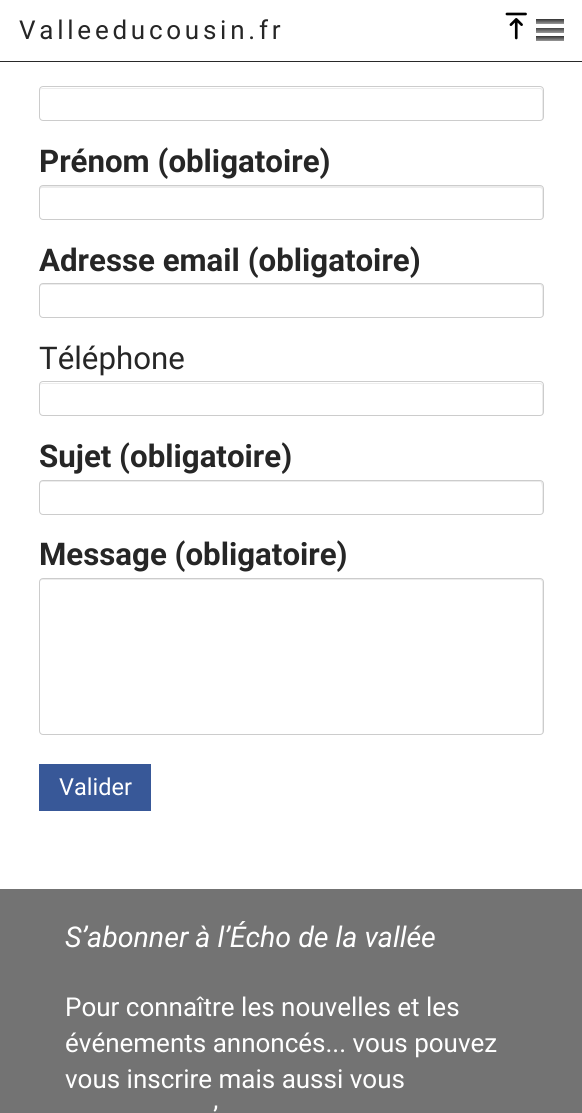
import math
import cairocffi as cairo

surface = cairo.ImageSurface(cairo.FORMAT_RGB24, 582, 1113)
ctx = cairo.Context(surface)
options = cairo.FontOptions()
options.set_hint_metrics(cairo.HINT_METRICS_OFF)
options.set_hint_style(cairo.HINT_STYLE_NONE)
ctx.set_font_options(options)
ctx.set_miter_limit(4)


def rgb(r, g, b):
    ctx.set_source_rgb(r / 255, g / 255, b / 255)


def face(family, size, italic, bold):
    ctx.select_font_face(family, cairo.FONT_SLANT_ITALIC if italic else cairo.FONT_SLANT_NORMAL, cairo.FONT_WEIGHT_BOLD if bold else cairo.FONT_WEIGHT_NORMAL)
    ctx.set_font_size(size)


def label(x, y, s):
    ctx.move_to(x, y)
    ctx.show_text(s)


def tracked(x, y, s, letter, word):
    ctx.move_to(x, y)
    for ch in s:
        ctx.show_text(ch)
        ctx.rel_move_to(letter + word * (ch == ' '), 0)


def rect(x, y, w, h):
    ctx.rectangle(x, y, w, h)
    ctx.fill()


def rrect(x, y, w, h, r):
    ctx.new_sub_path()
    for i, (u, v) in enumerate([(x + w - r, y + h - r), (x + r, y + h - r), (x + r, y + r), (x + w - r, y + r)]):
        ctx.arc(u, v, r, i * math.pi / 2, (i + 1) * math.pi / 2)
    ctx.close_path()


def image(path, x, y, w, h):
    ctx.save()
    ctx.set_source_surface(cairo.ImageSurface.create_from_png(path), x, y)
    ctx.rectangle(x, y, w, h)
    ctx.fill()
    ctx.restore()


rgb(255, 255, 255)
ctx.paint()
rgb(41, 41, 41)
rect(0, 61, 582, 1)
face('Roboto', 26, 0, 0)
rgb(38, 38, 38)
tracked(19, 39, 'Valleeducousin.fr', 3.75, 0)
image('image0.png', 505, 12, 22, 28)
gradient = cairo.LinearGradient(550, 41, 550, 36)
gradient.add_color_stop_rgba(0, 0.6, 0.6, 0.6, 1)
gradient.add_color_stop_rgba(1, 0.2, 0.2, 0.2, 1)
ctx.set_source(gradient)
rect(536, 36, 28, 5)
gradient = cairo.LinearGradient(550, 33, 550, 27)
gradient.add_color_stop_rgba(0, 0.6, 0.6, 0.6, 1)
gradient.add_color_stop_rgba(1, 0.2, 0.2, 0.2, 1)
ctx.set_source(gradient)
rect(536, 28, 28, 5)
gradient = cairo.LinearGradient(550, 24, 550, 19)
gradient.add_color_stop_rgba(0, 0.6, 0.6, 0.6, 1)
gradient.add_color_stop_rgba(1, 0.2, 0.2, 0.2, 1)
ctx.set_source(gradient)
rect(536, 19, 28, 5)
rgb(236, 236, 236)
ctx.new_path()
ctx.move_to(42, 89)
ctx.line_to(540, 89)
ctx.curve_to(541, 89, 542, 90, 542, 91)
ctx.line_to(542, 120)
ctx.line_to(543, 118)
ctx.line_to(543, 90)
ctx.line_to(541, 88)
ctx.line_to(42, 88)
ctx.curve_to(40, 89, 40, 90, 40, 91)
ctx.curve_to(40, 90, 41, 89, 42, 89)
ctx.close_path()
ctx.fill()
rrect(39.5, 86.5, 504, 34, 3.5)
rgb(204, 204, 204)
ctx.set_line_width(1)
ctx.stroke()
face('Roboto', 31.25, 0, 1)
rgb(38, 38, 38)
label(39, 172, 'Prénom (obligatoire)')
rgb(236, 236, 236)
ctx.new_path()
ctx.move_to(42, 188)
ctx.line_to(540, 188)
ctx.curve_to(541, 188, 542, 189, 542, 190)
ctx.line_to(542, 219)
ctx.line_to(543, 217)
ctx.line_to(543, 188)
ctx.line_to(541, 186)
ctx.line_to(42, 186)
ctx.curve_to(40, 186, 40, 188, 40, 190)
ctx.curve_to(40, 189, 41, 188, 42, 188)
ctx.close_path()
ctx.fill()
rrect(39.5, 185.5, 504, 34, 3.5)
rgb(204, 204, 204)
ctx.stroke()
rgb(38, 38, 38)
label(39, 271, 'Adresse email (obligatoire)')
rgb(236, 236, 236)
ctx.new_path()
ctx.move_to(42, 285)
ctx.line_to(540, 285)
ctx.curve_to(543, 285, 542, 296, 542, 297)
ctx.line_to(542, 316)
ctx.curve_to(543, 315, 543, 314, 543, 314)
ctx.line_to(543, 286)
ctx.curve_to(543, 285, 542, 284, 540, 284)
ctx.line_to(42, 284)
ctx.curve_to(41, 284, 40, 285, 40, 286)
ctx.line_to(40, 288)
ctx.curve_to(40, 286, 41, 285, 42, 285)
ctx.close_path()
ctx.fill()
rrect(39.5, 283.5, 504, 34, 3.5)
rgb(204, 204, 204)
ctx.stroke()
face('Roboto', 31.25, 0, 0)
rgb(38, 38, 38)
label(39, 369, 'Téléphone')
rgb(236, 236, 236)
ctx.new_path()
ctx.move_to(42, 384)
ctx.line_to(540, 384)
ctx.curve_to(541, 384, 542, 385, 542, 386)
ctx.line_to(542, 415)
ctx.line_to(543, 413)
ctx.line_to(543, 385)
ctx.line_to(541, 383)
ctx.line_to(42, 383)
ctx.curve_to(40, 384, 40, 385, 40, 386)
ctx.curve_to(40, 385, 41, 384, 42, 384)
ctx.close_path()
ctx.fill()
rrect(39.5, 381.5, 504, 34, 3.5)
rgb(204, 204, 204)
ctx.stroke()
face('Roboto', 31.25, 0, 1)
rgb(38, 38, 38)
label(39, 467, 'Sujet (obligatoire)')
rgb(236, 236, 236)
ctx.new_path()
ctx.move_to(42, 482)
ctx.line_to(540, 482)
ctx.curve_to(543, 482, 542, 497, 542, 498)
ctx.line_to(542, 514)
ctx.curve_to(542, 513, 543, 512, 543, 512)
ctx.line_to(543, 484)
ctx.curve_to(543, 482, 542, 481, 540, 481)
ctx.line_to(42, 481)
ctx.curve_to(41, 481, 40, 482, 40, 484)
ctx.line_to(40, 485)
ctx.curve_to(40, 484, 41, 482, 42, 482)
ctx.close_path()
ctx.fill()
rrect(39.5, 480.5, 504, 34, 3.5)
rgb(204, 204, 204)
ctx.stroke()
rgb(38, 38, 38)
label(39, 565, 'Message (obligatoire)')
rgb(236, 236, 236)
ctx.new_path()
ctx.move_to(42, 580)
ctx.line_to(540, 580)
ctx.curve_to(541, 580, 542, 581, 542, 582)
ctx.line_to(542, 734)
ctx.curve_to(542, 733, 543, 732, 543, 732)
ctx.line_to(543, 582)
ctx.curve_to(543, 580, 542, 579, 540, 579)
ctx.line_to(42, 579)
ctx.curve_to(41, 579, 40, 580, 40, 582)
ctx.curve_to(40, 581, 41, 580, 42, 580)
ctx.close_path()
ctx.fill()
rrect(39.5, 578.5, 504, 156, 3.5)
rgb(204, 204, 204)
ctx.stroke()
rgb(56, 88, 152)
rect(39, 764, 112, 47)
face('Roboto', 23.5, 0, 0)
rgb(255, 255, 255)
label(59, 795, 'Valider')
rgb(115, 115, 115)
rect(0, 889, 582, 224)
face('Roboto', 28.6, 1, 0)
rgb(255, 255, 255)
label(65, 947, 'S’abonner à l’Écho de la vallée')
face('Roboto', 26, 0, 0)
label(65, 1016, 'Pour connaître les nouvelles et les')
label(65, 1052, 'événements annoncés... vous pouvez')
label(65, 1088, 'vous inscrire mais aussi vous')
label(213, 1125, '’')
surface.write_to_png('render.png')
